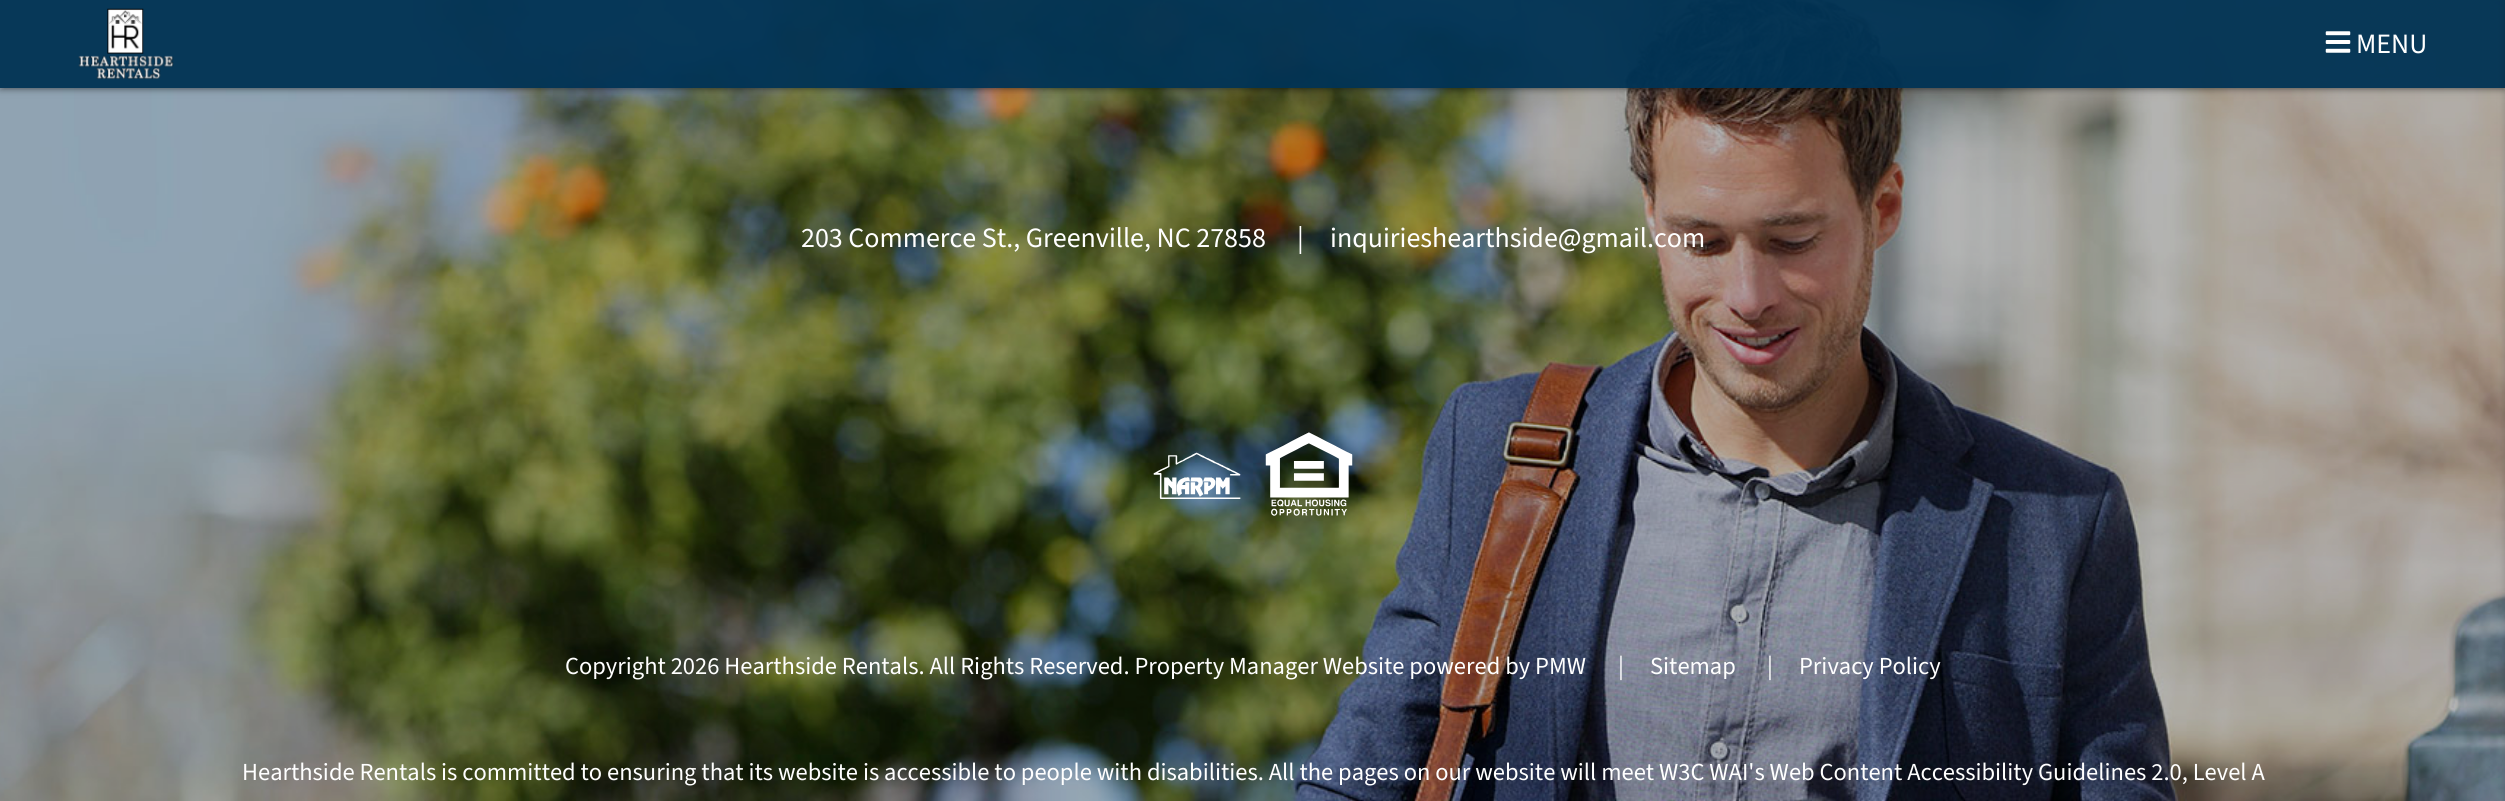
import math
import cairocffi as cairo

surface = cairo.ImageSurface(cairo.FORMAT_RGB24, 2505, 801)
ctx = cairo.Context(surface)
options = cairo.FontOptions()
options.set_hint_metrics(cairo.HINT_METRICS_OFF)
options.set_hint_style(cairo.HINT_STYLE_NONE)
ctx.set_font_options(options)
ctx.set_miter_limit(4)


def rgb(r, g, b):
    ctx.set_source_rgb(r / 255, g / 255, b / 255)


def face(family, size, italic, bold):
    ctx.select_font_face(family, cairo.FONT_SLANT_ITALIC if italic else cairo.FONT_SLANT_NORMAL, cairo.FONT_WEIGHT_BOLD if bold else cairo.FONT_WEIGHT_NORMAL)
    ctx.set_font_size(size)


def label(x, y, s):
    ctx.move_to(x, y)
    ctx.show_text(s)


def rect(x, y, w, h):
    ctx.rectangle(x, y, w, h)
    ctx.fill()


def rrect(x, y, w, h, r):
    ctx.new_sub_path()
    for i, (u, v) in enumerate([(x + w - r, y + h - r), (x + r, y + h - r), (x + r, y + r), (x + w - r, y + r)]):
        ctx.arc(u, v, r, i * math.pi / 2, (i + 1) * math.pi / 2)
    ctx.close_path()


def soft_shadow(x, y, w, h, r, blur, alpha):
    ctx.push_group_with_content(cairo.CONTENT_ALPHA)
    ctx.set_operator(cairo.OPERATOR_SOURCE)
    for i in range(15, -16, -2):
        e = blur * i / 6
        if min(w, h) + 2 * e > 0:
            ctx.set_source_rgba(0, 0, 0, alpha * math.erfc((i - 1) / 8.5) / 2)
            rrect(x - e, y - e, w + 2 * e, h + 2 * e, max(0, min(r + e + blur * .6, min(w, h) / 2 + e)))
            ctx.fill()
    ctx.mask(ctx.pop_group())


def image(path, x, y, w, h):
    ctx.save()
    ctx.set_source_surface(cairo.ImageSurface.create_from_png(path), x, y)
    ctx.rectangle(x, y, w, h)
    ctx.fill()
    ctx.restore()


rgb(255, 255, 255)
ctx.paint()
image('image2.png', 0, 0, 2505, 801)
ctx.save()
ctx.set_fill_rule(cairo.FILL_RULE_EVEN_ODD)
ctx.new_path()
ctx.move_to(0, 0)
ctx.line_to(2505, 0)
ctx.line_to(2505, 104)
ctx.line_to(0, 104)
ctx.close_path()
ctx.move_to(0, 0)
ctx.line_to(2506, 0)
ctx.line_to(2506, 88)
ctx.line_to(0, 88)
ctx.close_path()
ctx.clip()
rgb(0, 0, 0)
soft_shadow(0, 2, 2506, 87, 0, 4.5, 0.2)
ctx.restore()
ctx.save()
ctx.set_fill_rule(cairo.FILL_RULE_EVEN_ODD)
ctx.new_path()
ctx.move_to(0, 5)
ctx.line_to(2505, 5)
ctx.line_to(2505, 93)
ctx.line_to(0, 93)
ctx.close_path()
ctx.move_to(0, 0)
ctx.line_to(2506, 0)
ctx.line_to(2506, 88)
ctx.line_to(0, 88)
ctx.close_path()
ctx.clip()
rgb(0, 0, 0)
soft_shadow(4, 9, 2499, 80, 0, 1, 0.12)
ctx.restore()
ctx.save()
ctx.set_fill_rule(cairo.FILL_RULE_EVEN_ODD)
ctx.new_path()
ctx.move_to(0, 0)
ctx.line_to(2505, 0)
ctx.line_to(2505, 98)
ctx.line_to(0, 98)
ctx.close_path()
ctx.move_to(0, 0)
ctx.line_to(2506, 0)
ctx.line_to(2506, 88)
ctx.line_to(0, 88)
ctx.close_path()
ctx.clip()
rgb(0, 0, 0)
soft_shadow(0, 4, 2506, 87, 0, 2, 0.14)
ctx.restore()
ctx.set_source_rgba(0, 0.2, 0.329, 0.95)
rect(0, 0, 2505, 88)
image('image0.png', 78, 8, 96, 71)
image('image1.png', 2325, 31, 26, 22)
face('Source Sans 3', 28, 0, 0)
rgb(255, 255, 255)
label(2356, 53, 'MENU')
rgb(0, 0, 0)
soft_shadow(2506, 2, 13, 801, 0, 4.5, 0.2)
rgb(255, 255, 255)
label(801, 247, '203 Commerce St., Greenville, NC 27858')
label(1297, 247, '|')
label(1330, 247, 'inquirieshearthside@gmail.com')
image('image3.png', 1153, 452, 88, 47)
image('image4.png', 1265, 432, 88, 84)
face('Source Sans 3', 24.5, 0, 0)
label(565, 674, 'Copyright 2026 Hearthside Rentals. All Rights Reserved. Property Manager Website powered by PMW')
label(1618, 674, '|')
label(1650, 674, 'Sitemap')
label(1767, 674, '|')
label(1799, 674, 'Privacy Policy')
label(242, 780, 'Hearthside Rentals is committed to ensuring that its website is accessible to people with disabilities. All the pages on our website will meet W3C WAI\'s Web Content Accessibility Guidelines 2.0, Level A')
surface.write_to_png('render.png')
